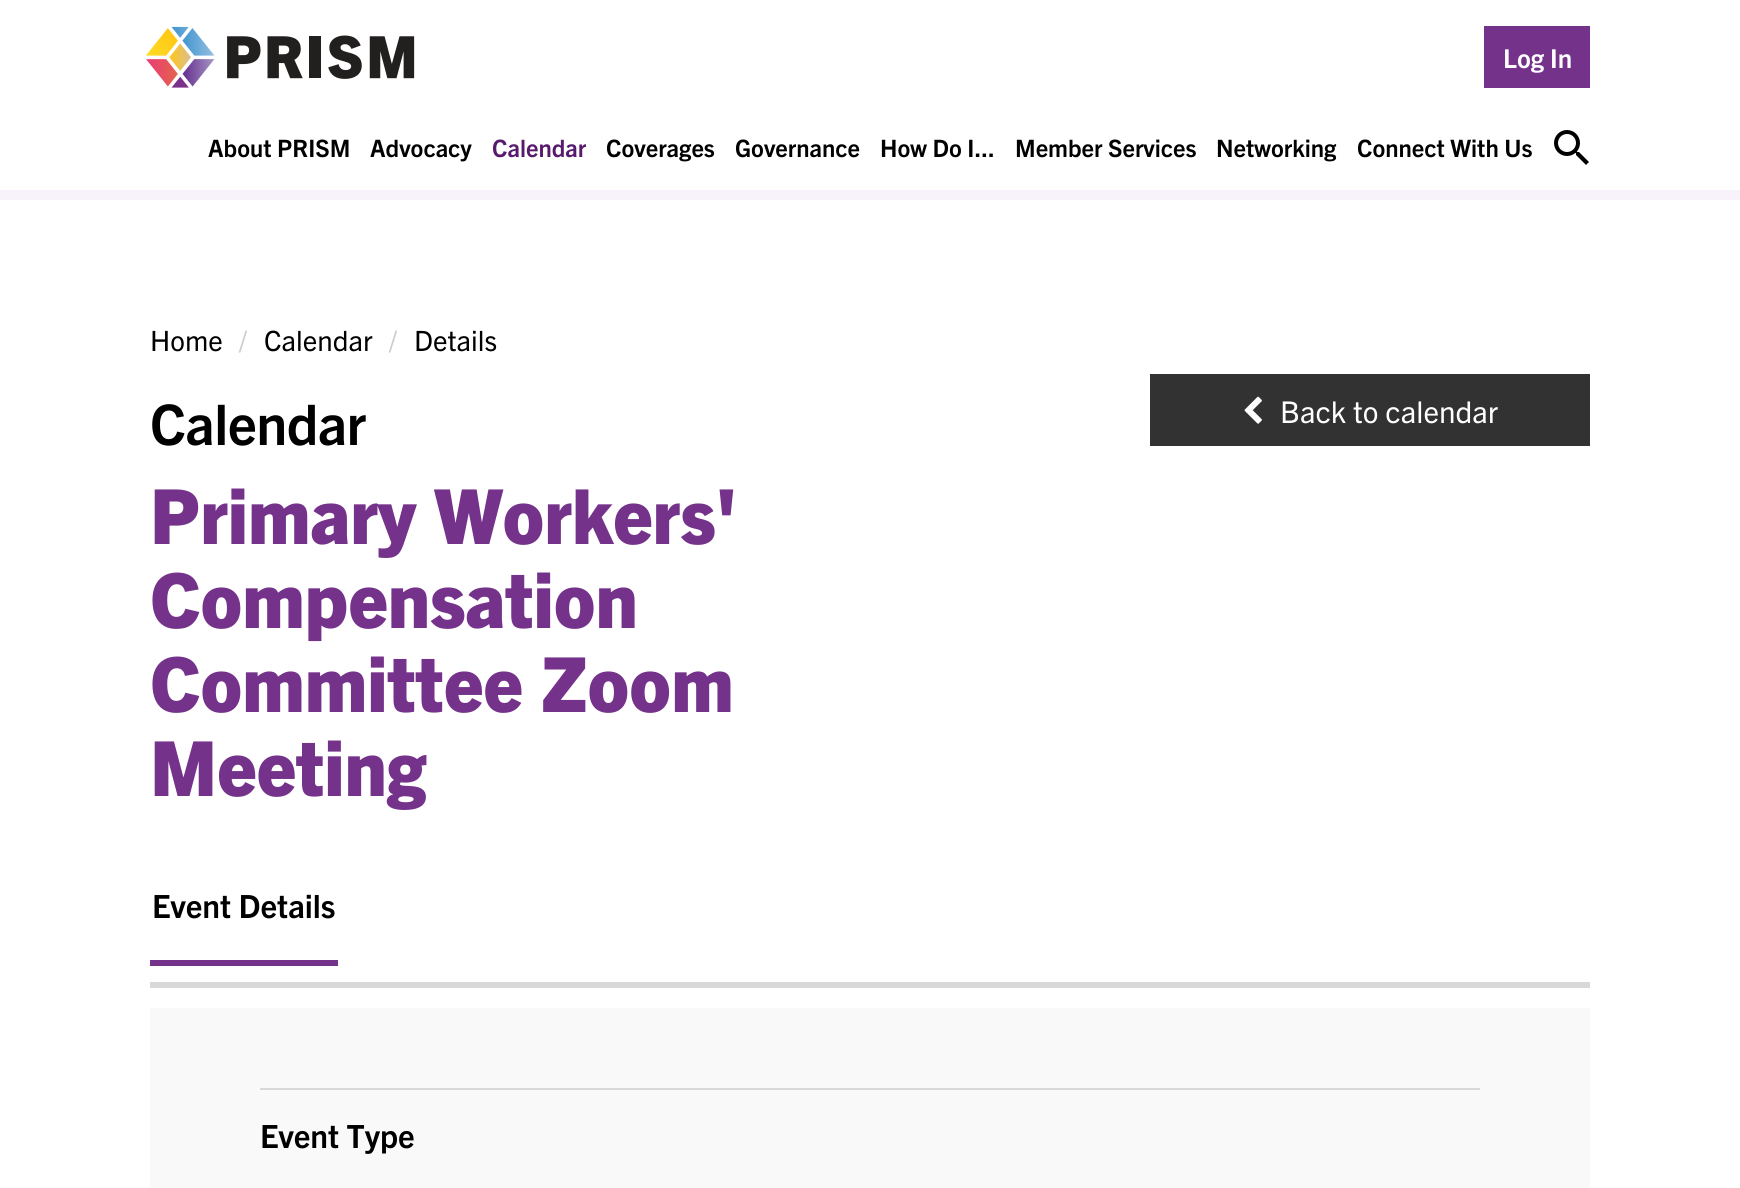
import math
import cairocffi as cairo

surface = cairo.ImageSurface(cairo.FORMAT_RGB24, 1740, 1188)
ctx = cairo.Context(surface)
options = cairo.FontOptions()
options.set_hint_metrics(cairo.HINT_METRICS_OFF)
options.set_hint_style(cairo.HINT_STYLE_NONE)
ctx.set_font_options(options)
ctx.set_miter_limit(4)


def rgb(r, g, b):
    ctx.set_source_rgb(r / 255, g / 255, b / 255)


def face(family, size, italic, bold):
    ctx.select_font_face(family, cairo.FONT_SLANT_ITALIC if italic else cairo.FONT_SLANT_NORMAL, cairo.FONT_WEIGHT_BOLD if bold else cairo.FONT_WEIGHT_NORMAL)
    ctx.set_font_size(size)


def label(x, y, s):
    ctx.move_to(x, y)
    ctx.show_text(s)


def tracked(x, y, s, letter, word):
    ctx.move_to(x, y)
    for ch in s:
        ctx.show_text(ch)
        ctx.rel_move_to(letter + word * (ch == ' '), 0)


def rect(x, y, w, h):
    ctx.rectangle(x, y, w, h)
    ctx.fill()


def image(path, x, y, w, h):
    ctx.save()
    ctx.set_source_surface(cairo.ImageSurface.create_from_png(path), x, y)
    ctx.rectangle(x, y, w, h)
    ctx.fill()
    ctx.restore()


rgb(255, 255, 255)
ctx.paint()
image('image0.png', 146, 26, 269, 62)
rgb(117, 50, 139)
rect(1484, 26, 106, 62)
face('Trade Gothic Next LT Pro', 26, 0, 1)
rgb(255, 255, 255)
label(1503, 68, 'Log In')
face('Trade Gothic Next LT Pro', 24, 0, 1)
rgb(0, 0, 0)
label(208, 157, 'About PRISM')
label(370, 157, 'Advocacy')
rgb(88, 26, 109)
label(492, 157, 'Calendar')
rgb(0, 0, 0)
label(606, 157, 'Coverages')
label(735, 157, 'Governance')
label(880, 157, 'How Do I...')
label(1015, 157, 'Member Services')
label(1216, 157, 'Networking')
label(1357, 157, 'Connect With Us')
image('image1.png', 1554, 130, 35, 35)
rgb(248, 242, 251)
rect(0, 190, 1740, 10)
face('Trade Gothic Next LT Pro', 28, 0, 0)
rgb(0, 0, 0)
label(150, 351, 'Home')
rgb(204, 204, 204)
label(239, 351, '/')
rgb(0, 0, 0)
label(264, 351, 'Calendar')
rgb(204, 204, 204)
label(389, 351, '/')
rgb(0, 0, 0)
label(414, 351, 'Details')
face('Trade Gothic Next LT Pro', 56, 0, 1)
tracked(150, 445, 'Calendar', -0.5, 0)
face('Trade Gothic Next LT Pro ExtraBold', 76, 0, 0)
rgb(117, 50, 139)
label(150, 544, 'Primary Workers\'')
label(150, 628, 'Compensation')
label(150, 712, 'Committee Zoom')
label(150, 796, 'Meeting')
rgb(50, 50, 50)
rect(1150, 374, 440, 72)
image('image2.png', 1244, 396, 18, 28)
face('Trade Gothic Next LT Pro', 30, 0, 0)
rgb(255, 255, 255)
label(1280, 423, 'Back to calendar')
rgb(216, 216, 216)
rect(150, 982, 1440, 6)
rgb(117, 50, 139)
rect(150, 960, 188, 6)
face('Trade Gothic Next LT Pro', 32, 0, 1)
rgb(0, 0, 0)
label(152, 918, 'Event Details')
rgb(249, 249, 249)
rect(150, 1008, 1440, 180)
rgb(216, 216, 216)
rect(260, 1088, 1220, 2)
rgb(0, 0, 0)
label(260, 1148, 'Event Type')
surface.write_to_png('render.png')
